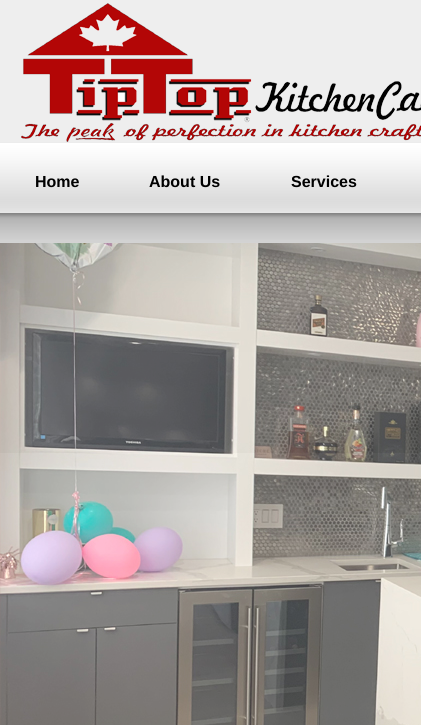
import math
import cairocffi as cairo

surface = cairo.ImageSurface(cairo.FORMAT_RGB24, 421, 725)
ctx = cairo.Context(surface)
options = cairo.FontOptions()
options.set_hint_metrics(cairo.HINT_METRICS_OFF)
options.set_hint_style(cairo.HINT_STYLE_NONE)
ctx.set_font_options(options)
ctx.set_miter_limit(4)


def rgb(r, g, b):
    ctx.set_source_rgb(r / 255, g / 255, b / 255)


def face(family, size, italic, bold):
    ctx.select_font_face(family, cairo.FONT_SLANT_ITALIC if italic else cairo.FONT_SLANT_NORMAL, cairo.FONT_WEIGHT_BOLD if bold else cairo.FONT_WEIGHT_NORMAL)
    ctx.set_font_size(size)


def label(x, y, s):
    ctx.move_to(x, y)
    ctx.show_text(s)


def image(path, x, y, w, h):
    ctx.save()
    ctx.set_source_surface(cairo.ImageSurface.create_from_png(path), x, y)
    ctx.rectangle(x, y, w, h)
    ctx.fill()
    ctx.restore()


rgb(255, 255, 255)
ctx.paint()
image('image0.png', 0, 0, 421, 453)
image('image1.png', 21, 3, 400, 139)
face('Liberation Sans', 16, 0, 1)
rgb(0, 0, 0)
label(35, 187, 'Home')
label(149, 187, 'About Us')
label(291, 187, 'Services')
image('image2.png', 0, 243, 421, 482)
surface.write_to_png('render.png')
